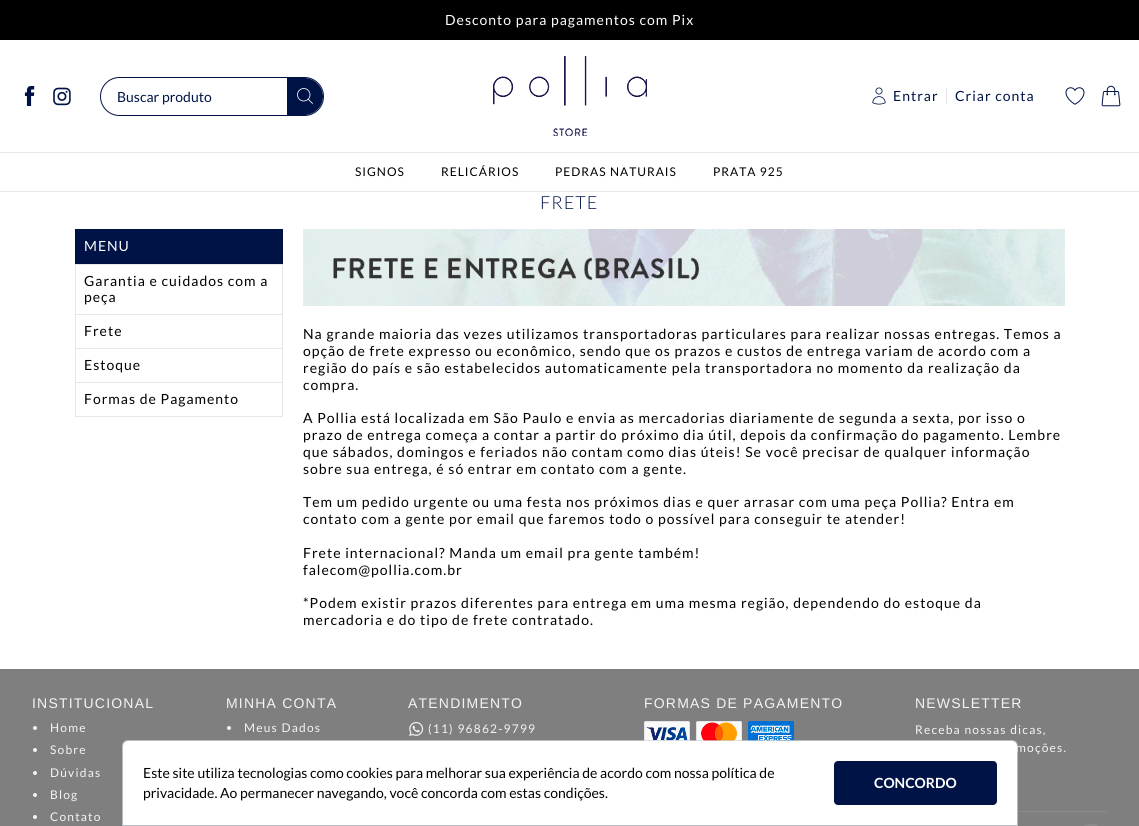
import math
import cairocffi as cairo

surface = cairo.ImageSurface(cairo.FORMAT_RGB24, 1139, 826)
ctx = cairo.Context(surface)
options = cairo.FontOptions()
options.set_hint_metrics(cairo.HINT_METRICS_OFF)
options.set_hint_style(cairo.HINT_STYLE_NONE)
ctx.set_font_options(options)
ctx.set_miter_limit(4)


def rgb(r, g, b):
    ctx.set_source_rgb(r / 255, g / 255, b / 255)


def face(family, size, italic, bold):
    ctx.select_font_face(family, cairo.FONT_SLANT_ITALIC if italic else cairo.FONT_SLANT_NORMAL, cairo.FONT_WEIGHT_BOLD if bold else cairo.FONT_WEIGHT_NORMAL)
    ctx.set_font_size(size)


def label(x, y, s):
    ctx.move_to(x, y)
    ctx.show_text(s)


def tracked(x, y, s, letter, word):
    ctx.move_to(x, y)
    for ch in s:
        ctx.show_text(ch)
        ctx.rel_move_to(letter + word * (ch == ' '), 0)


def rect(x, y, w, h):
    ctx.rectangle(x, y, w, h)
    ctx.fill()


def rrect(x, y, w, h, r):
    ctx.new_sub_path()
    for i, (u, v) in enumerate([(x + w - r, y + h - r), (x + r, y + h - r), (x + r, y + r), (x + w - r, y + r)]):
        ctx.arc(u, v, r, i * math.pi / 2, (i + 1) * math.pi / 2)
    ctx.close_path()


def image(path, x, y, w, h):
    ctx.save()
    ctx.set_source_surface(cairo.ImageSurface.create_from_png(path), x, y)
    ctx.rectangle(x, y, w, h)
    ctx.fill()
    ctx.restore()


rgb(255, 255, 255)
ctx.paint()
rgb(0, 0, 0)
rect(0, 0, 1139, 40)
face('Lato', 14, 0, 0)
rgb(255, 255, 255)
tracked(445, 25, 'Desconto para pagamentos com Pix', 1, 0)
rgb(229, 231, 235)
rect(0, 152, 1139, 1)
image('image0.png', 24, 86, 11, 20)
image('image1.png', 53, 87, 18, 19)
rrect(100.5, 77.5, 223, 38, 19)
rgb(0, 19, 70)
ctx.set_line_width(1)
ctx.stroke()
label(117, 102, 'Buscar produto')
ctx.new_path()
ctx.move_to(287, 78)
ctx.line_to(304.5, 78)
ctx.curve_to(314.5, 78, 323, 86.5, 323, 96.5)
ctx.curve_to(323, 106.5, 314.5, 115, 304.5, 115)
ctx.line_to(287, 115)
ctx.close_path()
ctx.fill()
image('image2.png', 297, 88, 16, 16)
image('image3.png', 493, 56, 154, 80)
image('image4.png', 872, 87, 14, 18)
tracked(893, 101, 'Entrar', 1, 0)
rgb(229, 231, 235)
rect(946, 88, 1, 16)
rgb(0, 19, 70)
tracked(955, 101, 'Criar conta', 1, 0)
image('image5.png', 1065, 87, 20, 18)
image('image6.png', 1101, 85, 20, 22)
rgb(229, 231, 235)
rect(0, 191, 1139, 1)
face('Lato', 12, 0, 0)
rgb(0, 0, 0)
tracked(355, 176, 'SIGNOS', 1, 0)
tracked(441, 176, 'RELICÁRIOS', 1, 0)
tracked(555, 176, 'PEDRAS NATURAIS', 1, 0)
tracked(713, 176, 'PRATA 925', 1, 0)
face('Lato Light', 18, 0, 0)
rgb(0, 19, 70)
tracked(540, 209, 'FRETE', 1, 0)
ctx.rectangle(75.5, 229.5, 207, 34)
ctx.fill_preserve()
rgb(0, 16, 60)
ctx.stroke()
face('Lato', 14, 0, 0)
rgb(255, 255, 255)
tracked(84, 251, 'MENU', 1, 0)
ctx.rectangle(75.5, 264.5, 207, 152)
rgb(229, 231, 235)
ctx.stroke()
rgb(0, 0, 0)
tracked(84, 286, 'Garantia e cuidados com a', 1, 0)
tracked(84, 302, 'peça', 1, 0)
rgb(229, 231, 235)
rect(76, 314, 206, 1)
rgb(0, 0, 0)
tracked(84, 336, 'Frete', 1, 0)
rgb(229, 231, 235)
rect(76, 348, 206, 1)
rgb(0, 0, 0)
tracked(84, 370, 'Estoque', 1, 0)
rgb(229, 231, 235)
rect(76, 382, 206, 1)
rgb(0, 0, 0)
tracked(84, 404, 'Formas de Pagamento', 1, 0)
image('image7.png', 303, 229, 762, 77)
tracked(303, 339, 'Na grande maioria das vezes utilizamos transportadoras particulares para realizar nossas entregas. Temos a', 1, 0)
tracked(303, 356, 'opção de frete expresso ou econômico, sendo que os prazos e custos de entrega variam de acordo com a', 1, 0)
tracked(303, 373, 'região do país e são estabelecidos automaticamente pela transportadora no momento da realização da', 1, 0)
tracked(303, 390, 'compra.', 1, 0)
tracked(303, 423, 'A Pollia está localizada em São Paulo e envia as mercadorias diariamente de segunda a sexta, por isso o', 1, 0)
tracked(303, 440, 'prazo de entrega começa a contar a partir do próximo dia útil, depois da confirmação do pagamento. Lembre', 1, 0)
tracked(303, 457, 'que sábados, domingos e feriados não contam como dias úteis! Se você precisar de qualquer informação', 1, 0)
tracked(303, 474, 'sobre sua entrega, é só entrar em contato com a gente.', 1, 0)
tracked(303, 507, 'Tem um pedido urgente ou uma festa nos próximos dias e quer arrasar com uma peça Pollia? Entra em', 1, 0)
tracked(303, 524, 'contato com a gente por email que faremos todo o possível para conseguir te atender!', 1, 0)
tracked(303, 558, 'Frete internacional? Manda um email pra gente também!', 1, 0)
tracked(303, 575, 'falecom@pollia.com.br', 1, 0)
tracked(303, 608, '*Podem existir prazos diferentes para entrega em uma mesma região, dependendo do estoque da', 1, 0)
tracked(303, 625, 'mercadoria e do tipo de frete contratado.', 1, 0)
rgb(127, 127, 127)
rect(0, 669, 1139, 157)
face('Liberation Sans', 14, 0, 0)
rgb(243, 244, 246)
tracked(32, 708, 'INSTITUCIONAL', 1.2, 0)
ctx.new_path()
ctx.arc(35, 728, 2, 0, 2 * math.pi)
ctx.fill()
face('Lato', 12, 0, 0)
tracked(50, 732, 'Home', 1.2, 0)
ctx.new_path()
ctx.arc(35, 750, 2, 0, 2 * math.pi)
ctx.fill()
tracked(50, 754, 'Sobre', 1.2, 0)
ctx.new_path()
ctx.arc(35, 773, 2, 0, 2 * math.pi)
ctx.fill()
tracked(50, 777, 'Dúvidas', 1.2, 0)
ctx.new_path()
ctx.arc(35, 795, 2, 0, 2 * math.pi)
ctx.fill()
tracked(50, 799, 'Blog', 1.2, 0)
ctx.new_path()
ctx.arc(35, 817, 2, 0, 2 * math.pi)
ctx.fill()
tracked(50, 821, 'Contato', 1.2, 0)
face('Liberation Sans', 14, 0, 0)
tracked(226, 708, 'MINHA CONTA', 1.2, 0)
ctx.new_path()
ctx.arc(229, 728, 2, 0, 2 * math.pi)
ctx.fill()
face('Lato', 12, 0, 0)
tracked(244, 732, 'Meus Dados', 1.2, 0)
face('Liberation Sans', 14, 0, 0)
tracked(408, 708, 'ATENDIMENTO', 1.2, 0)
image('image8.png', 409, 722, 15, 14)
face('Lato', 12, 0, 0)
tracked(428, 733, '(11) 96862-9799', 1.2, 0)
face('Liberation Sans', 14, 0, 0)
tracked(644, 708, 'FORMAS DE PAGAMENTO', 1.2, 0)
image('image9.png', 644, 721, 150, 20)
tracked(915, 708, 'NEWSLETTER', 1.2, 0)
face('Lato', 12, 0, 0)
tracked(915, 734, 'Receba nossas dicas,', 1.2, 0)
tracked(1016, 752, 'moções.', 1.2, 0)
rgb(140, 140, 140)
rect(1017, 811, 90, 1)
rrect(1075, 824, 32, 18, 16)
ctx.fill()
ctx.new_path()
ctx.move_to(128, 740.5)
ctx.line_to(1012, 740.5)
ctx.curve_to(1015, 740.5, 1017.5, 743, 1017.5, 746)
ctx.line_to(1017.5, 825.5)
ctx.line_to(122.5, 825.5)
ctx.line_to(122.5, 746)
ctx.curve_to(122.5, 743, 125, 740.5, 128, 740.5)
ctx.close_path()
ctx.set_source_rgba(0.82, 0.835, 0.859, 0.7)
ctx.stroke()
rgb(255, 255, 255)
ctx.new_path()
ctx.move_to(128, 741)
ctx.line_to(1012, 741)
ctx.curve_to(1015, 741, 1017, 743, 1017, 746)
ctx.line_to(1017, 825)
ctx.line_to(123, 825)
ctx.line_to(123, 746)
ctx.curve_to(123, 743, 125, 741, 128, 741)
ctx.close_path()
ctx.fill()
face('Lato', 14, 0, 0)
rgb(0, 0, 0)
label(143, 778, 'Este site utiliza tecnologias como cookies para melhorar sua experiência de acordo com nossa política de')
label(143, 798, 'privacidade. Ao permanecer navegando, você concorda com estas condições.')
rgb(0, 19, 70)
rrect(834, 761, 163, 44, 4)
ctx.fill()
face('Lato', 14, 0, 1)
rgb(255, 255, 255)
label(874, 788, 'CONCORDO')
surface.write_to_png('render.png')
